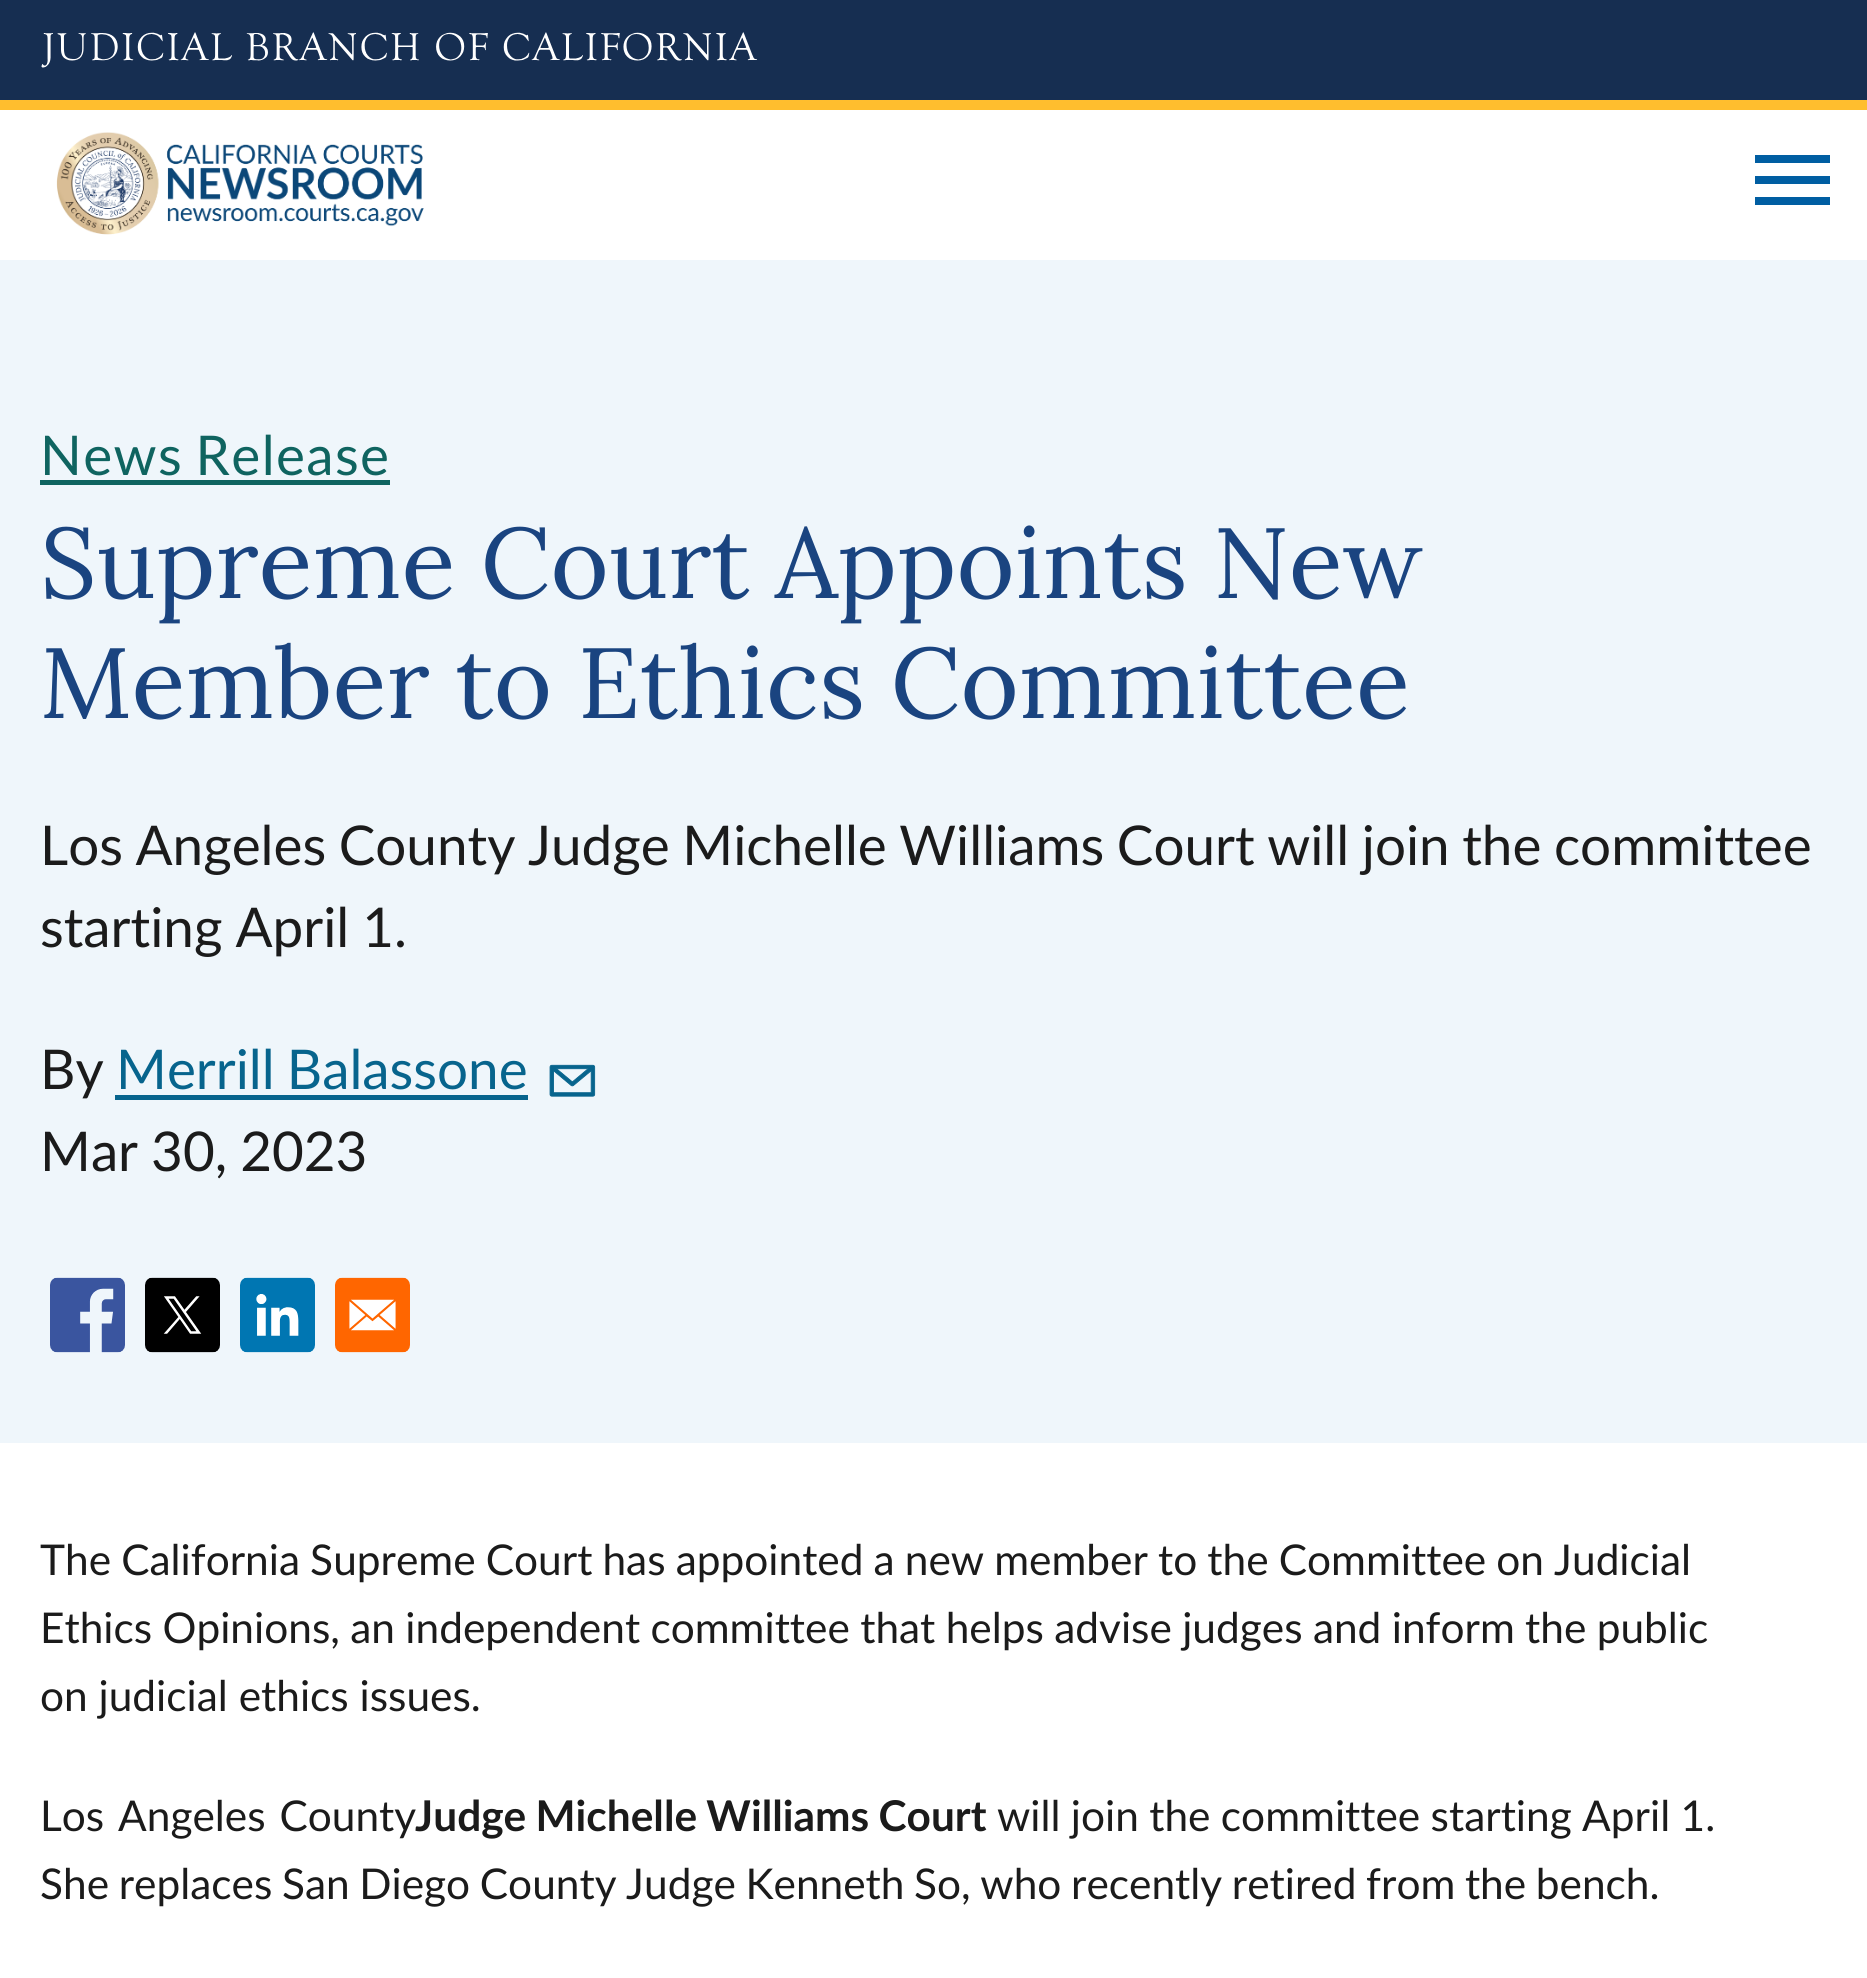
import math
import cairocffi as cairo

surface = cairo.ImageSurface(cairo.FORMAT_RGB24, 1867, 1978)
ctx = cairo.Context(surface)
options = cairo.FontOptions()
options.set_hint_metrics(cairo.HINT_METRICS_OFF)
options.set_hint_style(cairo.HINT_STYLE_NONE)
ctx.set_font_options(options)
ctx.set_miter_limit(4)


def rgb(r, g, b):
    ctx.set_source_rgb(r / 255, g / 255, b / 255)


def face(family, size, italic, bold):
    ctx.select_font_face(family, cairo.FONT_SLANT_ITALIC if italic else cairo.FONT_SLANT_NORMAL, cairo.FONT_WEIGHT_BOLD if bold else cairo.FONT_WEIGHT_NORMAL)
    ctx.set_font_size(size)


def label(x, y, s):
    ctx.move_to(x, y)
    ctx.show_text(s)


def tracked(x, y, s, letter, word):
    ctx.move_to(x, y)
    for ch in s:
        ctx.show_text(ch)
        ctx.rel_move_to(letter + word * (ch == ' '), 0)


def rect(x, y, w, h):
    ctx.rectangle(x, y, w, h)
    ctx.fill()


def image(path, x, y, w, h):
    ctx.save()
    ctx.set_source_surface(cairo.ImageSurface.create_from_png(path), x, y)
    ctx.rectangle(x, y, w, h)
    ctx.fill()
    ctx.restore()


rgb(255, 255, 255)
ctx.paint()
rgb(22, 46, 81)
rect(0, 0, 1867, 100)
image('image0.png', 41, 32, 717, 36)
rgb(255, 190, 46)
rect(0, 100, 1867, 10)
image('image1.png', 56, 132, 368, 103)
rgb(0, 94, 162)
ctx.new_path()
ctx.move_to(1755, 155)
ctx.line_to(1830, 155)
ctx.line_to(1830, 163)
ctx.line_to(1755, 163)
ctx.close_path()
ctx.move_to(1755, 184)
ctx.line_to(1755, 176)
ctx.line_to(1830, 176)
ctx.line_to(1830, 184)
ctx.close_path()
ctx.move_to(1755, 205)
ctx.line_to(1755, 197)
ctx.line_to(1830, 197)
ctx.line_to(1830, 205)
ctx.close_path()
ctx.fill()
rgb(239, 246, 251)
rect(0, 260, 1867, 1183)
face('Lato', 54.8, 0, 0)
rgb(15, 100, 96)
tracked(40, 475, 'News Release', 1.4, -3)
rect(40, 480, 350, 5)
face('Lora', 99.6, 0, 0)
rgb(26, 68, 128)
tracked(40, 598, 'Supreme Court Appoints New', 0, -1)
tracked(40, 718, 'Member to Ethics Committee', 0, -0.5)
face('Lato', 54.8, 0, 0)
rgb(27, 27, 27)
tracked(40, 865, 'Los Angeles County Judge Michelle Williams Court will join the committee', 0, -1.5)
tracked(40, 947, 'starting April 1.', 0, -1)
label(40, 1089, 'By')
rgb(7, 100, 141)
tracked(116, 1089, 'Merrill Balassone', 0, -2)
rect(115, 1095, 413, 5)
image('image2.png', 549, 1064, 47, 33)
rgb(27, 27, 27)
tracked(40, 1171, 'Mar 30, 2023', 0, -1)
image('image3.png', 50, 1277, 75, 76)
image('image4.png', 145, 1277, 75, 76)
image('image5.png', 240, 1277, 75, 76)
image('image6.png', 335, 1277, 75, 76)
face('Lato', 42.4, 0, 0)
tracked(40, 1575, 'The California Supreme Court has appointed a new member to the Committee on Judicial', 0, -0.75)
tracked(40, 1643, 'Ethics Opinions, an independent committee that helps advise judges and inform the public', 0, -0.5)
label(40, 1711, 'on judicial ethics issues.')
tracked(40, 1831, 'Los Angeles County', 0, 3)
face('Lato', 42.4, 0, 1)
tracked(415, 1831, 'Judge Michelle Williams Court', 0, -1)
face('Lato', 42.4, 0, 0)
tracked(997, 1831, 'will join the committee starting April 1.', 0, -0.5)
tracked(40, 1899, 'She replaces San Diego County Judge Kenneth So, who recently retired from the bench.', 0, -1.25)
surface.write_to_png('render.png')
